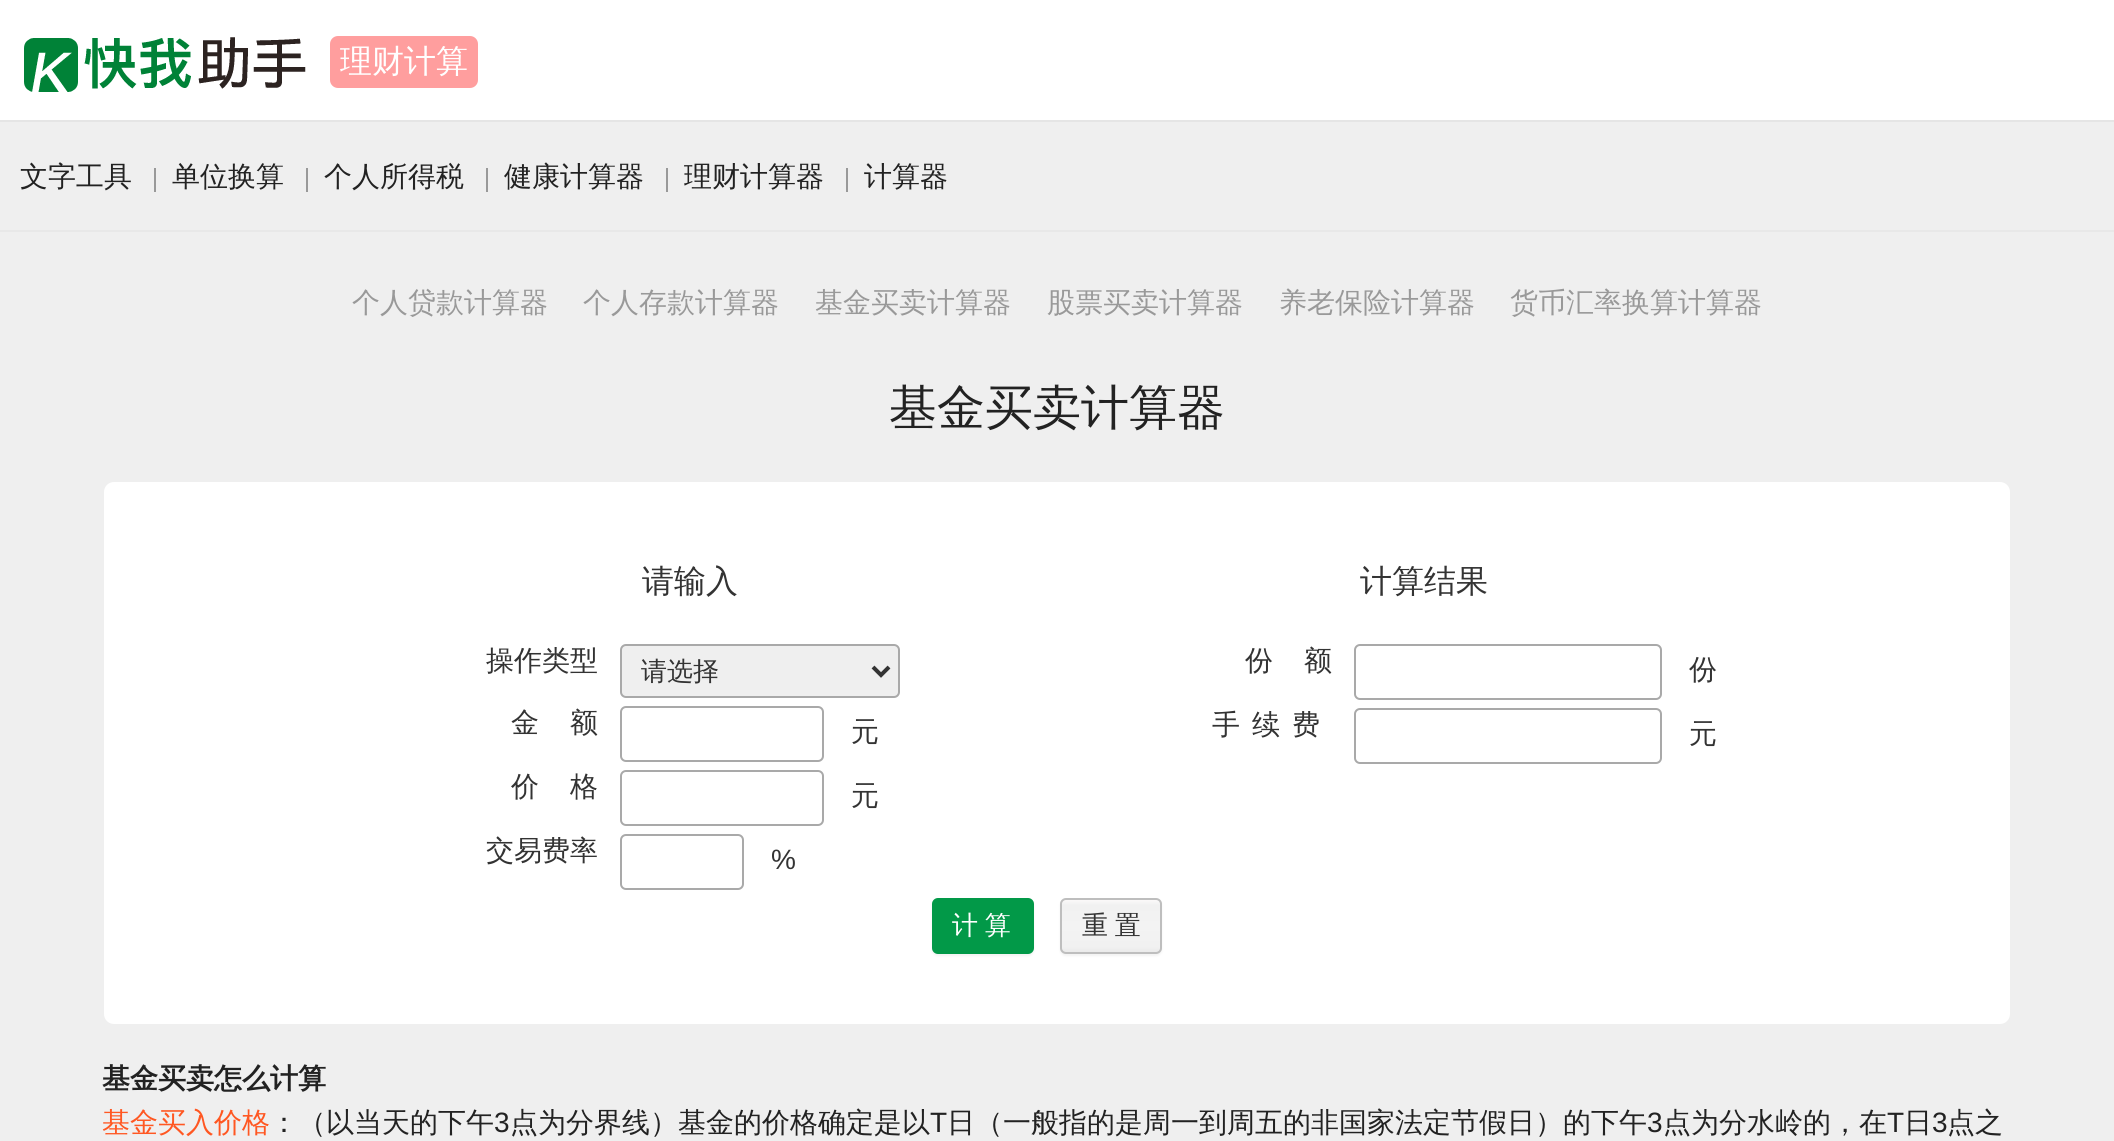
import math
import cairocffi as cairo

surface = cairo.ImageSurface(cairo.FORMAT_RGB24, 2114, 1141)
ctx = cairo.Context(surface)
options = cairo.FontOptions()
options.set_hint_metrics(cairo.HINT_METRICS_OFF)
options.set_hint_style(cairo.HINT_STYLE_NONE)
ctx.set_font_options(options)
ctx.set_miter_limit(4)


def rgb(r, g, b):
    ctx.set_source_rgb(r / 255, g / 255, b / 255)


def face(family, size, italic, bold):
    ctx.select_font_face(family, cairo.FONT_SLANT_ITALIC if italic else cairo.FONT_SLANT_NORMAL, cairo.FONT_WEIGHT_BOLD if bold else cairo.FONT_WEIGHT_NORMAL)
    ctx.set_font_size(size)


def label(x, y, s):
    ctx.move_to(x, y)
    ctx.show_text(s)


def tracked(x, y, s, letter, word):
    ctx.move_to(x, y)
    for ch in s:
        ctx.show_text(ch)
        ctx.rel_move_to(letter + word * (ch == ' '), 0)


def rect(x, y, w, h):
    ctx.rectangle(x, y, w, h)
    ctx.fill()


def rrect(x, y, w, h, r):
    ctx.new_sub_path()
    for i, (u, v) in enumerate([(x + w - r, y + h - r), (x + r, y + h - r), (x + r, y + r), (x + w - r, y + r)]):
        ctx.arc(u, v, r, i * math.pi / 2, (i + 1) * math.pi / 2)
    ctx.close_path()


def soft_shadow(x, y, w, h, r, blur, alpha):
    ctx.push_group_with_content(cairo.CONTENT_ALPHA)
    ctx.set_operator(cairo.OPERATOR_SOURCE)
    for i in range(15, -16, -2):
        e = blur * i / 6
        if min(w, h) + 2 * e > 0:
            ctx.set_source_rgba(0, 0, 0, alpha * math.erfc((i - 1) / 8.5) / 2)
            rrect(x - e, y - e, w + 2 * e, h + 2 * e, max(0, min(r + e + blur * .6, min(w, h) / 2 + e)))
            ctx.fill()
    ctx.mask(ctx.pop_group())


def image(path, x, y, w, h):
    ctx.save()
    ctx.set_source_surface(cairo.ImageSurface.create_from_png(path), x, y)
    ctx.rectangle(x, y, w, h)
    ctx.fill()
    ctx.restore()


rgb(239, 239, 239)
ctx.paint()
rgb(255, 255, 255)
rect(0, 0, 2114, 120)
rgb(229, 229, 229)
rect(0, 120, 2114, 2)
image('image0.png', 24, 37, 282, 55)
rgb(255, 158, 158)
rrect(330, 36, 148, 52, 8)
ctx.fill()
face('WenQuanYi Zen Hei Medium', 32, 0, 0)
rgb(255, 255, 255)
label(340, 72, '理财计算')
rgb(232, 232, 232)
rect(0, 230, 2114, 2)
face('WenQuanYi Zen Hei Medium', 28, 0, 0)
rgb(34, 34, 34)
label(20, 186, '文字工具')
rgb(153, 153, 153)
rect(154, 168, 2, 24)
rgb(34, 34, 34)
label(172, 186, '单位换算')
rgb(153, 153, 153)
rect(306, 168, 2, 24)
rgb(34, 34, 34)
label(324, 186, '个人所得税')
rgb(153, 153, 153)
rect(486, 168, 2, 24)
rgb(34, 34, 34)
label(504, 186, '健康计算器')
rgb(153, 153, 153)
rect(666, 168, 2, 24)
rgb(34, 34, 34)
label(684, 186, '理财计算器')
rgb(153, 153, 153)
rect(846, 168, 2, 24)
rgb(34, 34, 34)
label(864, 186, '计算器')
rgb(153, 153, 153)
label(352, 312, '个人贷款计算器')
label(583, 312, '个人存款计算器')
label(815, 312, '基金买卖计算器')
label(1047, 312, '股票买卖计算器')
label(1279, 312, '养老保险计算器')
label(1510, 312, '货币汇率换算计算器')
face('WenQuanYi Zen Hei Medium', 48, 0, 0)
rgb(34, 34, 34)
label(889, 424, '基金买卖计算器')
rgb(255, 255, 255)
rrect(103, 481, 1908, 544, 11)
ctx.fill_preserve()
rgb(239, 239, 239)
ctx.stroke()
face('WenQuanYi Zen Hei Medium', 32, 0, 0)
rgb(51, 51, 51)
label(642, 592, '请输入')
face('WenQuanYi Zen Hei Medium', 28, 0, 0)
label(486, 670, '操作类型')
rgb(239, 239, 239)
rrect(621, 645, 278, 52, 5)
ctx.fill_preserve()
rgb(169, 169, 169)
ctx.stroke()
ctx.new_path()
ctx.move_to(873, 667)
ctx.line_to(881, 675)
ctx.line_to(889, 667)
rgb(51, 51, 51)
ctx.set_line_width(4)
ctx.stroke()
face('WenQuanYi Zen Hei Medium', 26, 0, 0)
label(641, 680, '请选择')
face('WenQuanYi Zen Hei Medium', 28, 0, 0)
label(511, 732, '金')
label(570, 732, '额')
rrect(621, 707, 202, 54, 5)
rgb(169, 169, 169)
ctx.set_line_width(2)
ctx.stroke()
rgb(51, 51, 51)
label(851, 741, '元')
label(511, 796, '价')
label(570, 796, '格')
rrect(621, 771, 202, 54, 5)
rgb(169, 169, 169)
ctx.stroke()
rgb(51, 51, 51)
label(851, 805, '元')
label(486, 860, '交易费率')
rrect(621, 835, 122, 54, 5)
rgb(169, 169, 169)
ctx.stroke()
face('Liberation Sans', 28, 0, 0)
rgb(51, 51, 51)
label(771, 869, '%')
face('WenQuanYi Zen Hei Medium', 32, 0, 0)
label(1360, 592, '计算结果')
face('WenQuanYi Zen Hei Medium', 28, 0, 0)
label(1245, 670, '份')
label(1304, 670, '额')
rrect(1355, 645, 306, 54, 5)
rgb(169, 169, 169)
ctx.stroke()
rgb(51, 51, 51)
label(1689, 679, '份')
tracked(1212, 734, '手续费', 12, 0)
rrect(1355, 709, 306, 54, 5)
rgb(169, 169, 169)
ctx.stroke()
rgb(51, 51, 51)
label(1689, 743, '元')
rgb(243, 243, 243)
soft_shadow(932, 900, 102, 56, 6, 1, 1)
rgb(2, 153, 72)
rrect(933, 899, 100, 54, 5)
ctx.fill_preserve()
ctx.stroke()
face('WenQuanYi Zen Hei Medium', 26, 0, 0)
rgb(255, 255, 255)
tracked(952, 934, '计 算', 0, -1)
rgb(243, 243, 243)
soft_shadow(1060, 900, 102, 56, 6, 1, 1)
ctx.save()
rrect(1060, 898, 102, 56, 6)
ctx.clip()
gradient = cairo.LinearGradient(1062, 900, 1062, 952)
gradient.add_color_stop_rgba(0, 0.984, 0.976, 0.976, 1)
gradient.add_color_stop_rgba(0.1, 0.945, 0.945, 0.945, 1)
gradient.add_color_stop_rgba(0.5, 0.953, 0.953, 0.953, 1)
gradient.add_color_stop_rgba(0.9, 0.945, 0.945, 0.945, 1)
gradient.add_color_stop_rgba(1, 0.918, 0.918, 0.918, 1)
gradient.add_color_stop_rgba(1, 0.953, 0.953, 0.953, 1)
ctx.set_source(gradient)
rect(1060, 900, 102, 52)
ctx.restore()
rrect(1061, 899, 100, 54, 5)
rgb(190, 190, 190)
ctx.stroke()
rgb(51, 51, 51)
tracked(1082, 934, '重 置', 0, -1)
face('WenQuanYi Zen Hei', 28, 0, 1)
rgb(34, 34, 34)
label(102, 1088, '基金买卖怎么计算')
face('WenQuanYi Zen Hei Medium', 28, 0, 0)
rgb(255, 87, 34)
label(102, 1132, '基金买入价格')
rgb(34, 34, 34)
label(270, 1132, '：（以当天的下午')
face('Liberation Sans', 28, 0, 0)
label(494, 1132, '3')
face('WenQuanYi Zen Hei Medium', 28, 0, 0)
label(510, 1132, '点为分界线）基金的价格确定是以')
face('Liberation Sans', 28, 0, 0)
label(930, 1132, 'T')
face('WenQuanYi Zen Hei Medium', 28, 0, 0)
label(947, 1132, '日（一般指的是周一到周五的非国家法定节假日）的下午')
face('Liberation Sans', 28, 0, 0)
label(1647, 1132, '3')
face('WenQuanYi Zen Hei Medium', 28, 0, 0)
label(1663, 1132, '点为分水岭的，在')
face('Liberation Sans', 28, 0, 0)
label(1887, 1132, 'T')
face('WenQuanYi Zen Hei Medium', 28, 0, 0)
label(1904, 1132, '日')
face('Liberation Sans', 28, 0, 0)
label(1932, 1132, '3')
face('WenQuanYi Zen Hei Medium', 28, 0, 0)
label(1947, 1132, '点之')
surface.write_to_png('render.png')
